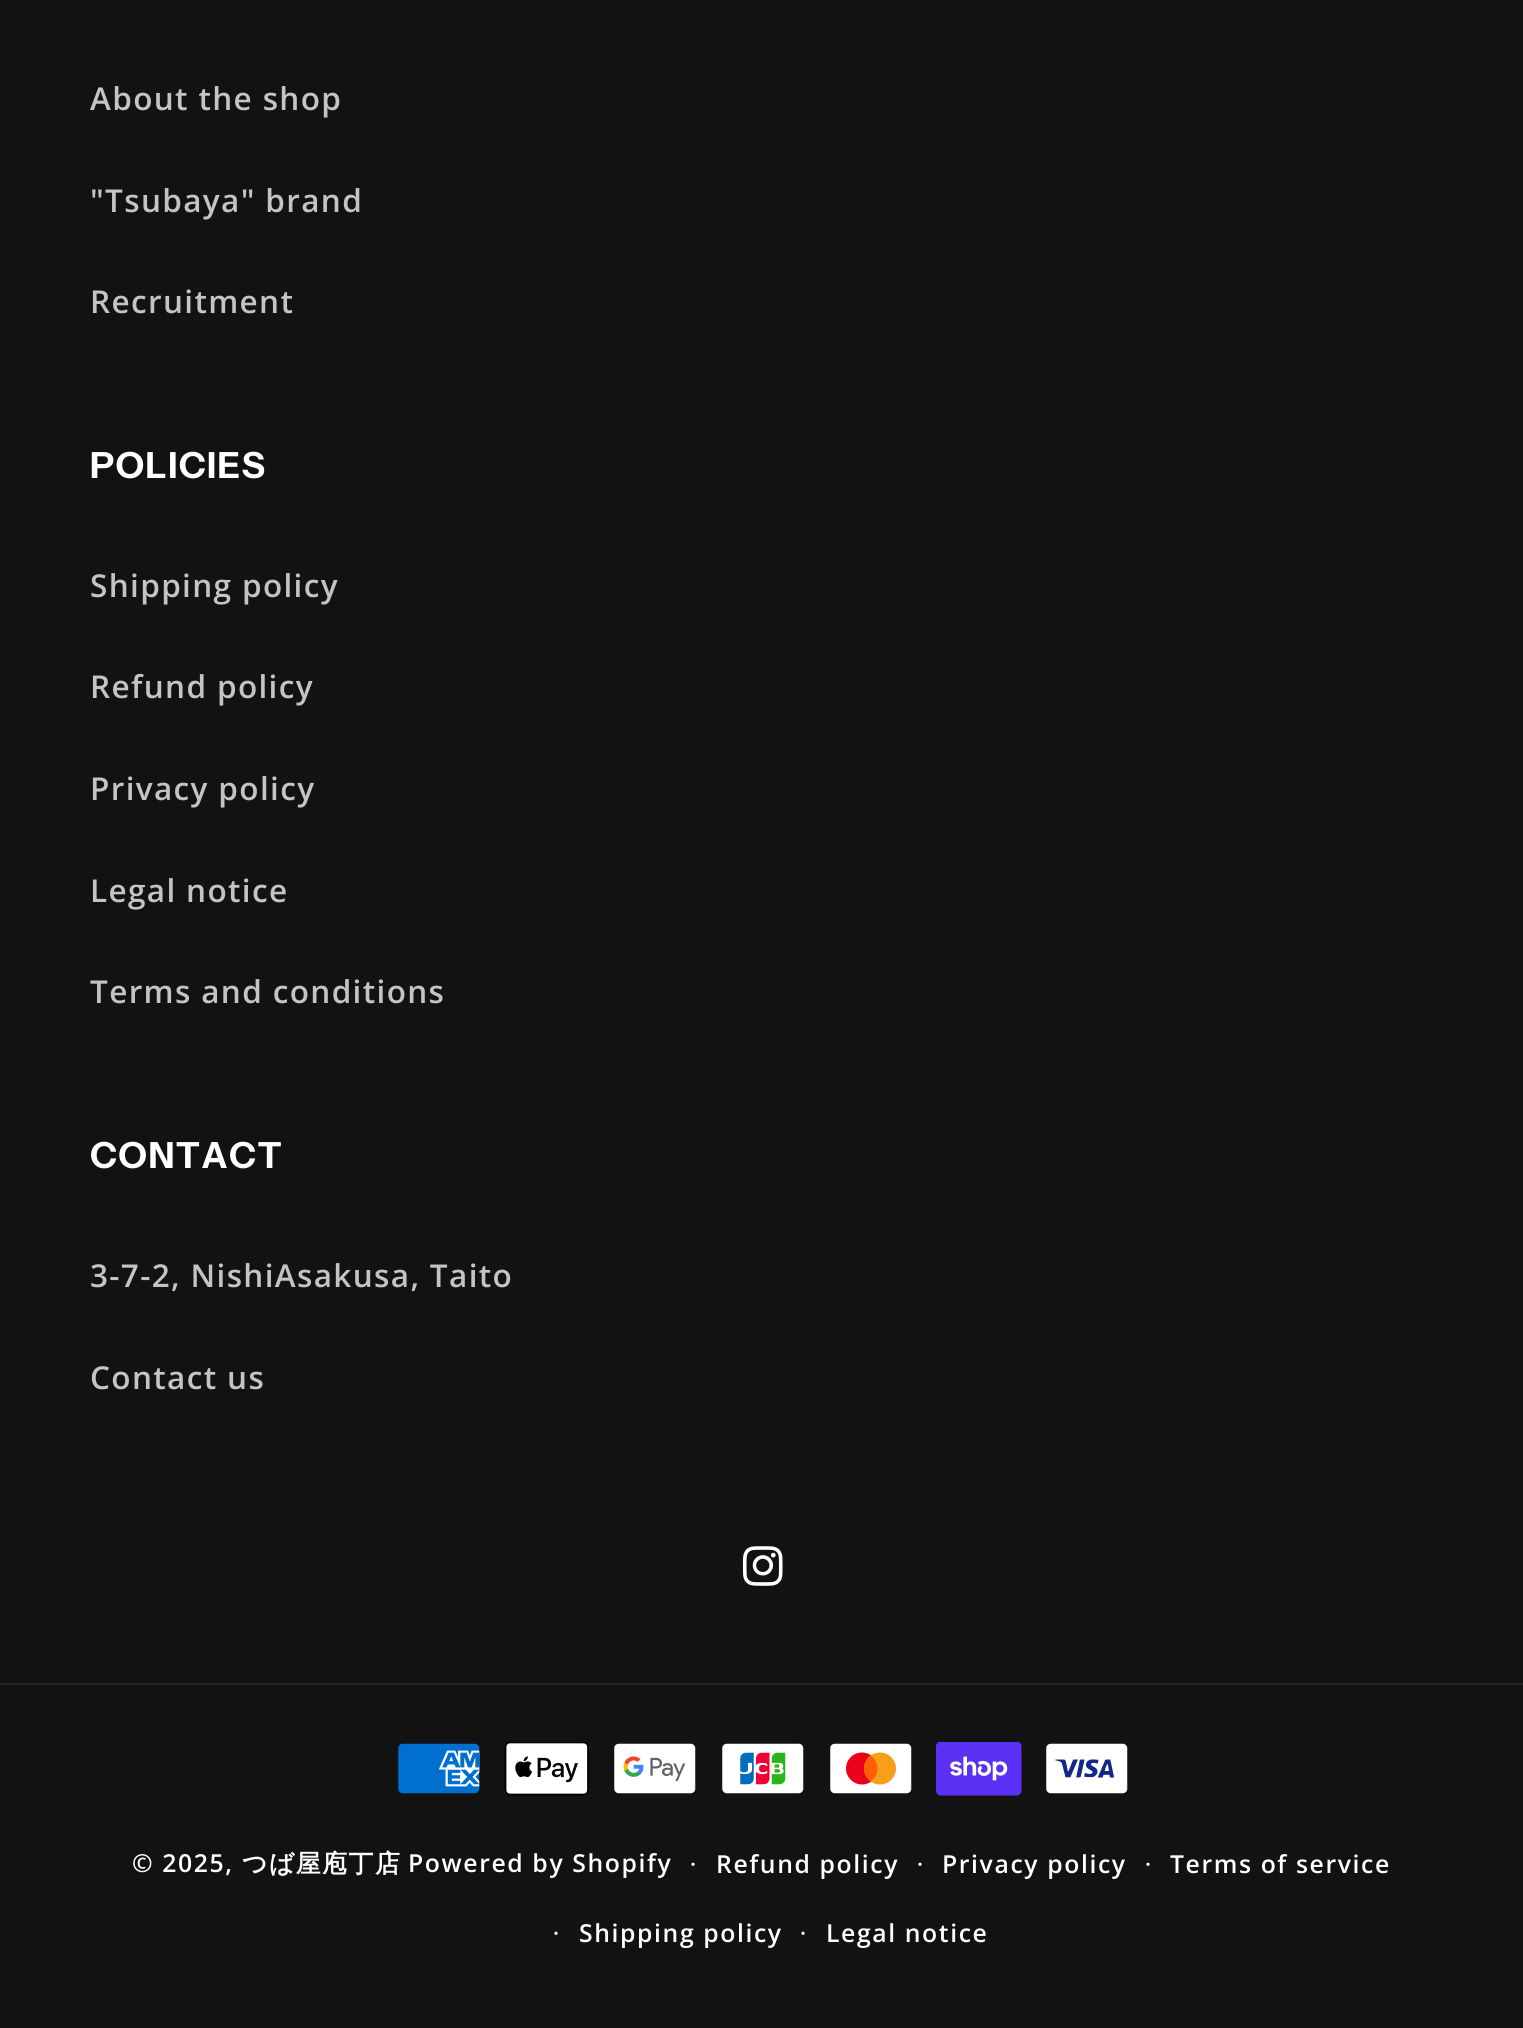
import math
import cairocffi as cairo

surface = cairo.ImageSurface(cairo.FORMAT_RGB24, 1523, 2028)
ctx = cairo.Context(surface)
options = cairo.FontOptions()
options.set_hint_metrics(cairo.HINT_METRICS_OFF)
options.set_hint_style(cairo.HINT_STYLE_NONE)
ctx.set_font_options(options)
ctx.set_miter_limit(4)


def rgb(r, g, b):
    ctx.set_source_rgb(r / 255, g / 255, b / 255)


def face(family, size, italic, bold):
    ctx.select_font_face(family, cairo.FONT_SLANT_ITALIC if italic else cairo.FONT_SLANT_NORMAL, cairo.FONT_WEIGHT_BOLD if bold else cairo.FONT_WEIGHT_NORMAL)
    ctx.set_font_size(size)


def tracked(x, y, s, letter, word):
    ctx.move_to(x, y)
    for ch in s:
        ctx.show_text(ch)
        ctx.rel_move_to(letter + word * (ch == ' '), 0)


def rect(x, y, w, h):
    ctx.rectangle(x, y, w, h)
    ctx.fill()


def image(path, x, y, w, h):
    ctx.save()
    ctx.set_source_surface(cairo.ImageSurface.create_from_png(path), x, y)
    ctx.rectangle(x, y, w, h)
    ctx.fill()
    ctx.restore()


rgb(18, 18, 18)
ctx.paint()
face('Open Sans SemiBold', 31.5, 0, 0)
rgb(196, 196, 196)
tracked(90, 110, 'About the shop', 1.35, 0)
tracked(90, 212, '"Tsubaya" brand', 1.35, 0)
tracked(90, 313, 'Recruitment', 1.35, 0)
face('Instrument Sans', 36, 0, 1)
rgb(255, 255, 255)
tracked(90, 478, 'POLICIES', 1.35, 0)
face('Open Sans SemiBold', 31.5, 0, 0)
rgb(196, 196, 196)
tracked(90, 597, 'Shipping policy', 1.35, 0)
tracked(90, 698, 'Refund policy', 1.35, 0)
tracked(90, 800, 'Privacy policy', 1.35, 0)
tracked(90, 902, 'Legal notice', 1.35, 0)
tracked(90, 1003, 'Terms and conditions', 1.35, 0)
face('Instrument Sans', 36, 0, 1)
rgb(255, 255, 255)
tracked(90, 1168, 'CONTACT', 1.35, 0)
face('Open Sans SemiBold', 31.5, 0, 0)
rgb(196, 196, 196)
tracked(90, 1287, '3-7-2, NishiAsakusa, Taito', 1.35, 0)
tracked(90, 1389, 'Contact us', 1.35, 0)
image('image0.png', 742, 1546, 41, 40)
rgb(37, 37, 37)
rect(0, 1683, 1523, 2)
image('image1.png', 398, 1743, 82, 51)
image('image2.png', 504, 1742, 85, 54)
image('image3.png', 614, 1743, 82, 51)
image('image4.png', 722, 1743, 82, 51)
image('image5.png', 830, 1743, 82, 51)
image('image6.png', 936, 1742, 86, 54)
image('image7.png', 1046, 1743, 82, 51)
face('Open Sans SemiBold', 24.75, 0, 0)
rgb(255, 255, 255)
tracked(132, 1872, '© 2025,', 1.6, 0)
face('WenQuanYi Zen Hei', 24.75, 0, 1)
tracked(242, 1872, 'つば屋庖丁店', 1.6, 0)
face('Open Sans SemiBold', 24.75, 0, 0)
tracked(408, 1872, 'Powered by Shopify', 1.6, 0)
face('Open Sans SemiBold', 22, 0, 0)
tracked(690, 1872, '·', 1.6, 0)
face('Open Sans SemiBold', 24.75, 0, 0)
tracked(716, 1873, 'Refund policy', 1.6, 0)
face('Open Sans SemiBold', 22, 0, 0)
tracked(917, 1872, '·', 1.6, 0)
face('Open Sans SemiBold', 24.75, 0, 0)
tracked(942, 1873, 'Privacy policy', 1.6, 0)
face('Open Sans SemiBold', 22, 0, 0)
tracked(1145, 1872, '·', 1.6, 0)
face('Open Sans SemiBold', 24.75, 0, 0)
tracked(1170, 1873, 'Terms of service', 1.6, 0)
face('Open Sans SemiBold', 22, 0, 0)
tracked(553, 1941, '·', 1.6, 0)
face('Open Sans SemiBold', 24.75, 0, 0)
tracked(579, 1942, 'Shipping policy', 1.6, 0)
face('Open Sans SemiBold', 22, 0, 0)
tracked(800, 1941, '·', 1.6, 0)
face('Open Sans SemiBold', 24.75, 0, 0)
tracked(826, 1942, 'Legal notice', 1.6, 0)
surface.write_to_png('render.png')
